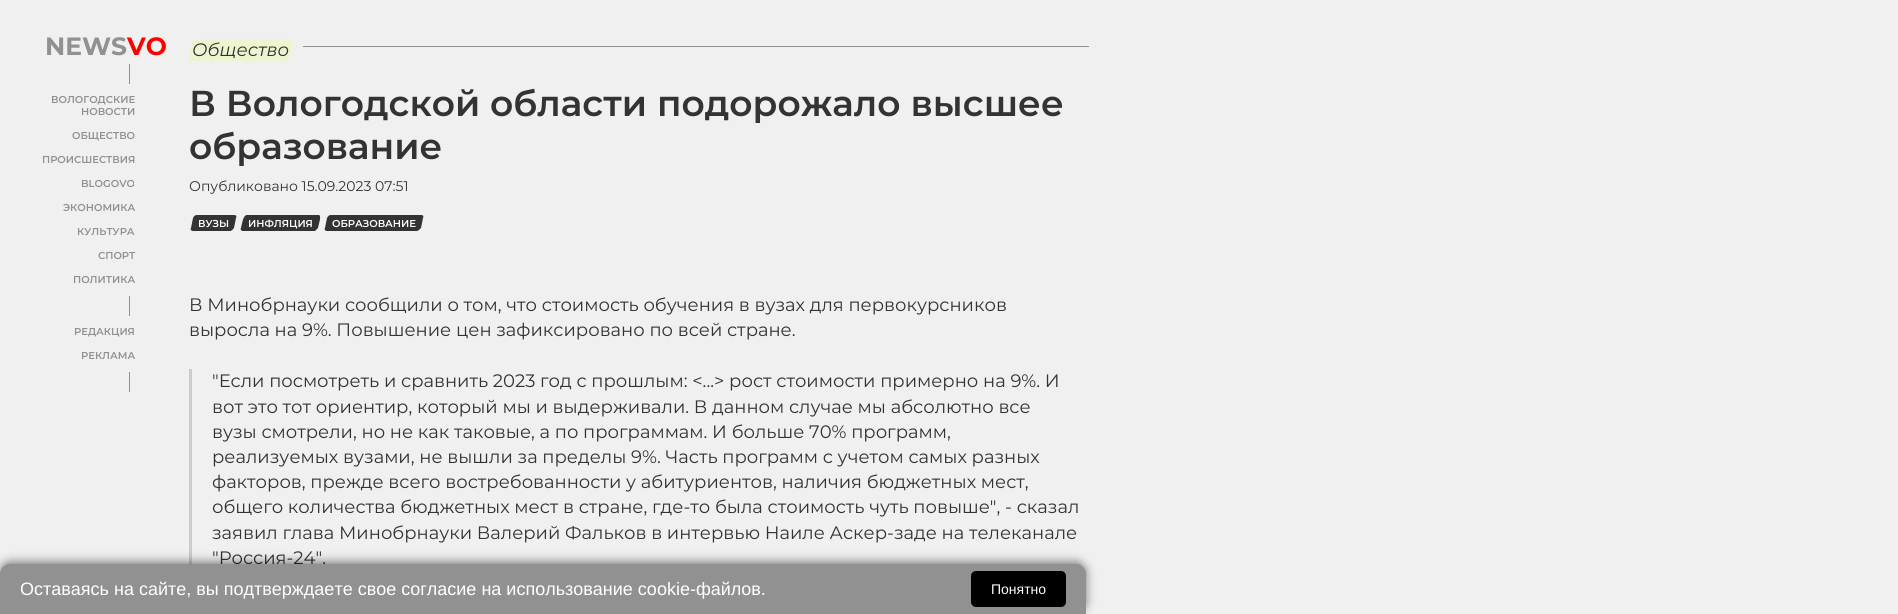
import math
import cairocffi as cairo

surface = cairo.ImageSurface(cairo.FORMAT_RGB24, 1898, 614)
ctx = cairo.Context(surface)
options = cairo.FontOptions()
options.set_hint_metrics(cairo.HINT_METRICS_OFF)
options.set_hint_style(cairo.HINT_STYLE_NONE)
ctx.set_font_options(options)
ctx.set_miter_limit(4)


def rgb(r, g, b):
    ctx.set_source_rgb(r / 255, g / 255, b / 255)


def face(family, size, italic, bold):
    ctx.select_font_face(family, cairo.FONT_SLANT_ITALIC if italic else cairo.FONT_SLANT_NORMAL, cairo.FONT_WEIGHT_BOLD if bold else cairo.FONT_WEIGHT_NORMAL)
    ctx.set_font_size(size)


def label(x, y, s):
    ctx.move_to(x, y)
    ctx.show_text(s)


def rect(x, y, w, h):
    ctx.rectangle(x, y, w, h)
    ctx.fill()


def rrect(x, y, w, h, r):
    ctx.new_sub_path()
    for i, (u, v) in enumerate([(x + w - r, y + h - r), (x + r, y + h - r), (x + r, y + r), (x + w - r, y + r)]):
        ctx.arc(u, v, r, i * math.pi / 2, (i + 1) * math.pi / 2)
    ctx.close_path()


def soft_shadow(x, y, w, h, r, blur, alpha):
    ctx.push_group_with_content(cairo.CONTENT_ALPHA)
    ctx.set_operator(cairo.OPERATOR_SOURCE)
    for i in range(15, -16, -2):
        e = blur * i / 6
        if min(w, h) + 2 * e > 0:
            ctx.set_source_rgba(0, 0, 0, alpha * math.erfc((i - 1) / 8.5) / 2)
            rrect(x - e, y - e, w + 2 * e, h + 2 * e, max(0, min(r + e + blur * .6, min(w, h) / 2 + e)))
            ctx.fill()
    ctx.mask(ctx.pop_group())


rgb(240, 240, 240)
ctx.paint()
face('Montserrat', 25, 0, 1)
rgb(145, 145, 145)
label(45, 55, 'NEWS')
rgb(255, 0, 0)
label(127, 55, 'VO')
rgb(145, 145, 145)
rect(129, 64, 1, 20)
face('Montserrat SemiBold', 10, 0, 0)
label(51, 103, 'ВОЛОГОДСКИЕ')
label(81, 115, 'НОВОСТИ')
label(72, 139, 'ОБЩЕСТВО')
label(42, 163, 'ПРОИСШЕСТВИЯ')
label(81, 187, 'BLOGOVO')
label(63, 211, 'ЭКОНОМИКА')
label(77, 235, 'КУЛЬТУРА')
label(98, 259, 'СПОРТ')
label(73, 283, 'ПОЛИТИКА')
rect(129, 296, 1, 20)
label(74, 335, 'РЕДАКЦИЯ')
label(81, 359, 'РЕКЛАМА')
rect(129, 372, 1, 20)
rgb(237, 245, 208)
ctx.new_path()
ctx.move_to(196, 39)
ctx.line_to(292, 39)
ctx.curve_to(294, 39, 295, 40, 294, 42)
ctx.line_to(290, 58)
ctx.curve_to(289, 60, 288, 61, 286, 61)
ctx.line_to(190, 61)
ctx.curve_to(188, 61, 187, 60, 188, 58)
ctx.line_to(192, 42)
ctx.curve_to(193, 40, 194, 39, 196, 39)
ctx.close_path()
ctx.fill()
face('Montserrat', 18, 1, 0)
rgb(51, 51, 51)
label(192, 56, 'Общество')
rgb(145, 145, 145)
rect(303, 46, 786, 1)
face('Montserrat SemiBold', 36, 0, 0)
rgb(51, 51, 51)
label(189, 116, 'В Вологодской области подорожало высшее')
label(189, 159, 'образование')
face('Montserrat', 14, 0, 0)
label(189, 191, 'Опубликовано 15.09.2023 07:51')
ctx.new_path()
ctx.move_to(197, 215)
ctx.line_to(234, 215)
ctx.curve_to(236, 215, 237, 216, 236, 218)
ctx.line_to(234, 228)
ctx.curve_to(233, 229, 232, 231, 230, 231)
ctx.line_to(193, 231)
ctx.curve_to(191, 231, 190, 229, 191, 228)
ctx.line_to(193, 218)
ctx.curve_to(194, 216, 195, 215, 197, 215)
ctx.close_path()
ctx.fill()
face('Montserrat SemiBold', 10, 0, 0)
rgb(255, 255, 255)
label(198, 227, 'ВУЗЫ')
rgb(51, 51, 51)
ctx.new_path()
ctx.move_to(247, 215)
ctx.line_to(319, 215)
ctx.curve_to(322, 216, 318, 226, 318, 228)
ctx.curve_to(317, 229, 316, 230, 315, 231)
ctx.line_to(243, 231)
ctx.curve_to(241, 231, 240, 229, 241, 228)
ctx.curve_to(242, 224, 243, 215, 247, 215)
ctx.close_path()
ctx.fill()
rgb(255, 255, 255)
label(248, 227, 'ИНФЛЯЦИЯ')
rgb(51, 51, 51)
ctx.new_path()
ctx.move_to(331, 215)
ctx.line_to(421, 215)
ctx.curve_to(423, 215, 424, 216, 423, 218)
ctx.line_to(421, 228)
ctx.curve_to(420, 229, 418, 231, 417, 231)
ctx.line_to(327, 231)
ctx.curve_to(325, 231, 324, 229, 325, 228)
ctx.line_to(327, 218)
ctx.curve_to(328, 216, 329, 215, 331, 215)
ctx.close_path()
ctx.fill()
rgb(255, 255, 255)
label(332, 227, 'ОБРАЗОВАНИЕ')
face('Montserrat', 18, 0, 0)
rgb(51, 51, 51)
label(189, 311, 'В Минобрнауки сообщили о том, что стоимость обучения в вузах для первокурсников')
label(189, 336, 'выросла на 9%. Повышение цен зафиксировано по всей стране.')
rgb(204, 204, 204)
rect(189, 369, 3, 202)
rgb(51, 51, 51)
label(212, 387, '"Если посмотреть и сравнить 2023 год с прошлым: <...> рост стоимости примерно на 9%. И')
label(212, 413, 'вот это тот ориентир, который мы и выдерживали. В данном случае мы абсолютно все')
label(212, 438, 'вузы смотрели, но не как таковые, а по программам. И больше 70% программ,')
label(212, 463, 'реализуемых вузами, не вышли за пределы 9%. Часть программ с учетом самых разных')
label(212, 488, 'факторов, прежде всего востребованности у абитуриентов, наличия бюджетных мест,')
label(212, 513, 'общего количества бюджетных мест в стране, где-то была стоимость чуть повыше", - сказал')
label(212, 539, 'заявил глава Минобрнауки Валерий Фальков в интервью Наиле Аскер-заде на телеканале')
label(212, 564, '"Россия-24".')
rgb(0, 0, 0)
soft_shadow(0, 562, 1086, 50, 10, 5, 0.5)
rgb(145, 145, 145)
ctx.new_path()
ctx.move_to(10, 564)
ctx.line_to(1076, 564)
ctx.curve_to(1081.5, 564, 1086, 568.5, 1086, 574)
ctx.line_to(1086, 614)
ctx.line_to(0, 614)
ctx.line_to(0, 574)
ctx.curve_to(0, 568.5, 4.5, 564, 10, 564)
ctx.close_path()
ctx.fill()
face('Liberation Sans', 18, 0, 0)
rgb(255, 255, 255)
label(20, 595, 'Оставаясь на сайте, вы подтверждаете свое согласие на использование cookie-файлов.')
rgb(0, 0, 0)
rrect(971, 571, 95, 36, 5)
ctx.fill()
face('Liberation Sans', 14, 0, 0)
rgb(255, 255, 255)
label(991, 594, 'Понятно')
surface.write_to_png('render.png')
